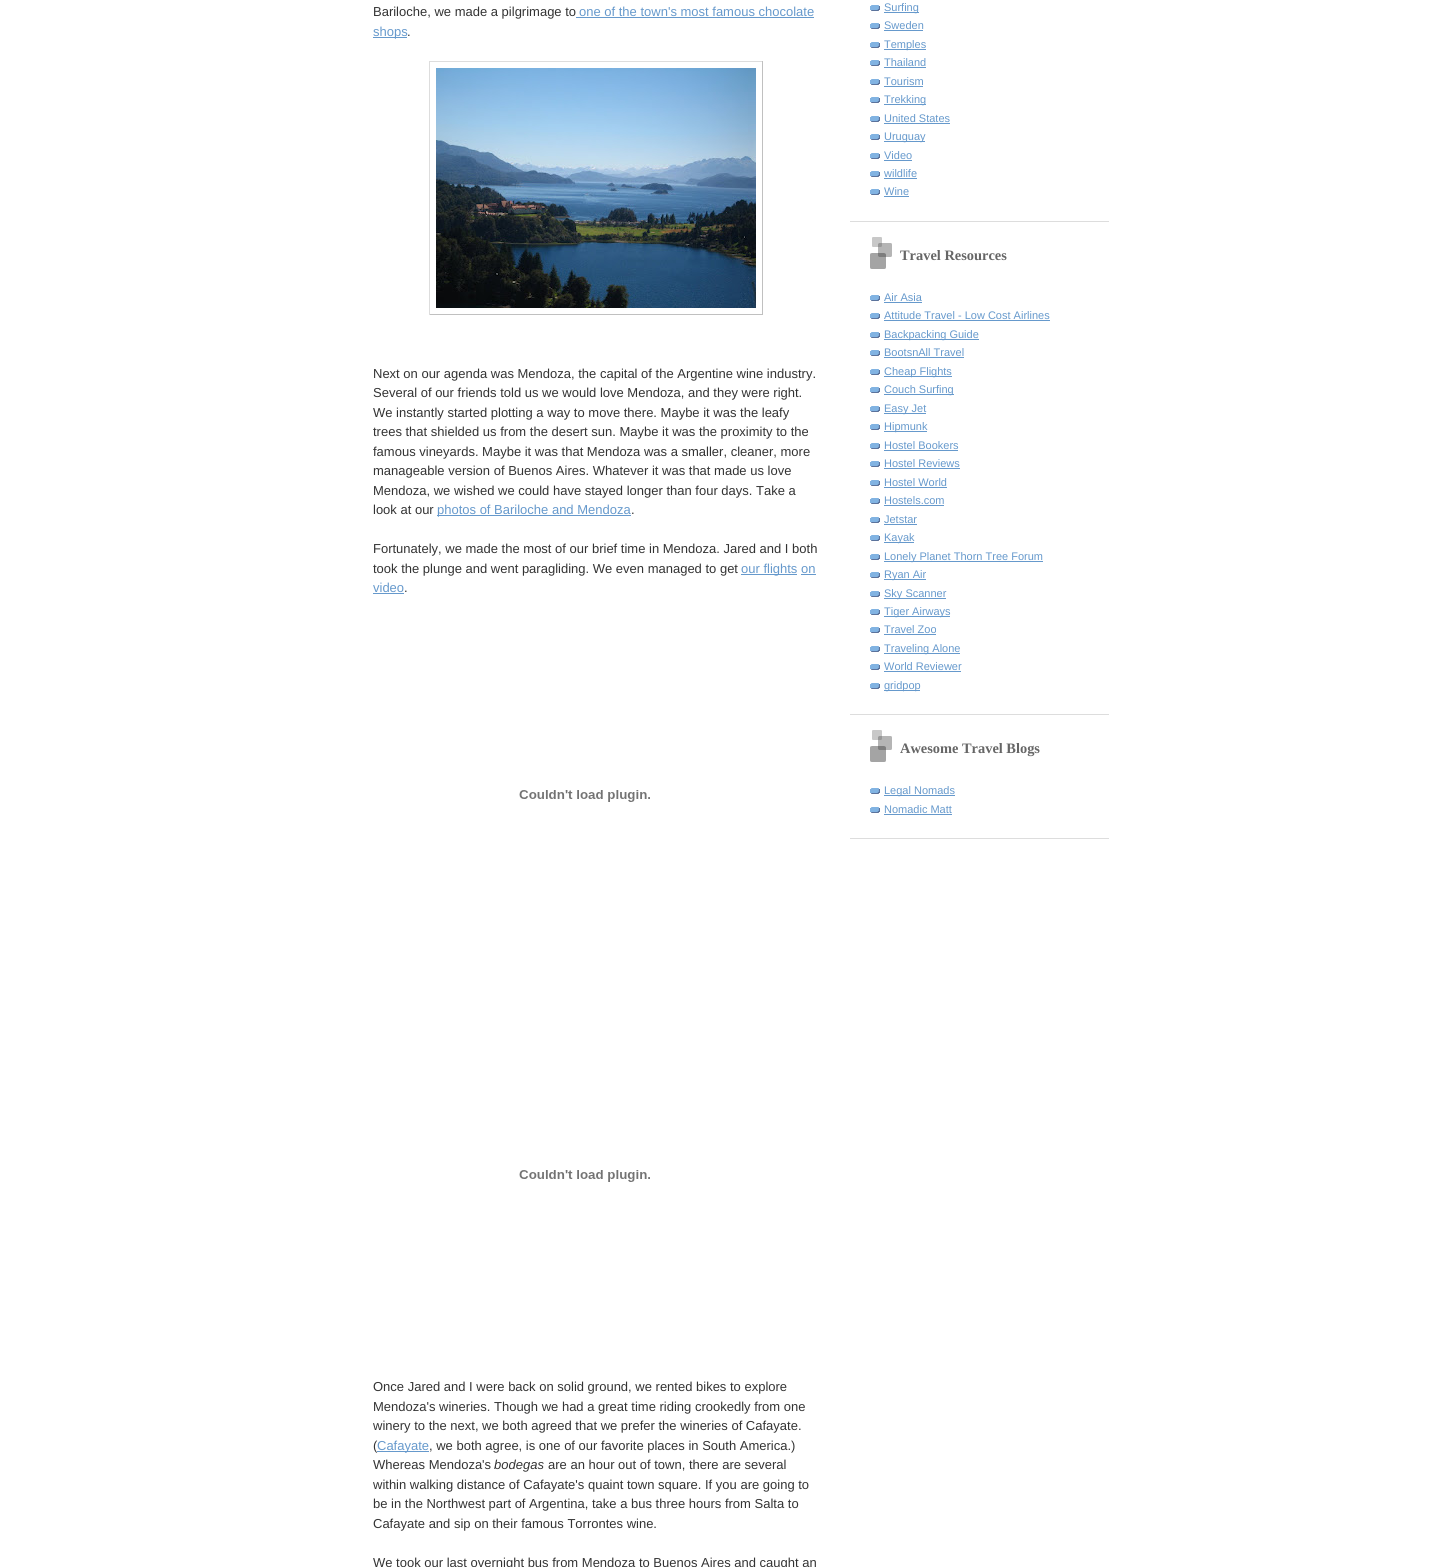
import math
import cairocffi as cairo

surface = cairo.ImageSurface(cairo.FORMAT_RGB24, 1454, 1567)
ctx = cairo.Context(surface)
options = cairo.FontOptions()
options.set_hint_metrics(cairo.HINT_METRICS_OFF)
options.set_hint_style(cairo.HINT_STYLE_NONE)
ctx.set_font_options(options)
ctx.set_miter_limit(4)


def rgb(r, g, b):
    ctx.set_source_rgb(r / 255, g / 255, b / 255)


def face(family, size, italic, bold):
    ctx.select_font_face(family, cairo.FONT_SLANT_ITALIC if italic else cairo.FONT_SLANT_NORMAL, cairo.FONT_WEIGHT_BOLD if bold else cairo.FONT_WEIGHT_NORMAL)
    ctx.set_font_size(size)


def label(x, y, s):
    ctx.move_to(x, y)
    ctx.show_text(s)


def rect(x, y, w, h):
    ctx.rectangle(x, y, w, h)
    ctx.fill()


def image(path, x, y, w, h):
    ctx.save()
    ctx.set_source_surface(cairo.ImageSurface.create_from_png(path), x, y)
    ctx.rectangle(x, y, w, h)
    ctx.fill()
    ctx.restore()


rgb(255, 255, 255)
ctx.paint()
face('Liberation Sans', 13, 0, 0)
rgb(51, 51, 51)
label(373, 16, 'Bariloche, we made a pilgrimage to')
rgb(102, 153, 204)
label(579, 16, 'one of the town\'s most famous chocolate')
rect(576, 17, 238, 1)
rect(373, 37, 34, 1)
label(373, 36, 'shops')
rgb(51, 51, 51)
label(407, 36, '.')
rgb(221, 221, 221)
rect(429, 61, 334, 1)
rgb(192, 192, 192)
rect(762, 61, 1, 254)
rect(429, 314, 334, 1)
rgb(221, 221, 221)
rect(429, 61, 1, 254)
image('image0.png', 436, 68, 320, 240)
rgb(51, 51, 51)
label(373, 378, 'Next on our agenda was Mendoza, the capital of the Argentine wine industry.')
label(373, 397, 'Several of our friends told us we would love Mendoza, and they were right.')
label(373, 417, 'We instantly started plotting a way to move there. Maybe it was the leafy')
label(373, 436, 'trees that shielded us from the desert sun. Maybe it was the proximity to the')
label(373, 456, 'famous vineyards. Maybe it was that Mendoza was a smaller, cleaner, more')
label(373, 475, 'manageable version of Buenos Aires. Whatever it was that made us love')
label(373, 495, 'Mendoza, we wished we could have stayed longer than four days. Take a')
label(373, 514, 'look at our')
rgb(102, 153, 204)
rect(437, 515, 194, 1)
label(437, 514, 'photos of Bariloche and Mendoza')
rgb(51, 51, 51)
label(631, 514, '.')
label(373, 553, 'Fortunately, we made the most of our brief time in Mendoza. Jared and I both')
label(373, 573, 'took the plunge and went paragliding. We even managed to get')
rgb(102, 153, 204)
rect(741, 574, 56, 1)
label(741, 573, 'our flights on')
label(373, 592, 'video')
rect(801, 574, 15, 1)
rect(373, 593, 31, 1)
rgb(51, 51, 51)
label(404, 592, '.')
image('image1.png', 519, 790, 131, 12)
image('image1.png', 519, 1170, 131, 12)
label(373, 1391, 'Once Jared and I were back on solid ground, we rented bikes to explore')
label(373, 1411, 'Mendoza\'s wineries. Though we had a great time riding crookedly from one')
label(373, 1430, 'winery to the next, we both agreed that we prefer the wineries of Cafayate.')
label(373, 1450, '(')
rgb(102, 153, 204)
rect(377, 1451, 52, 1)
label(377, 1450, 'Cafayate')
rgb(51, 51, 51)
label(429, 1450, ', we both agree, is one of our favorite places in South America.)')
label(373, 1469, 'Whereas Mendoza\'s')
face('Liberation Sans', 13, 1, 0)
label(494, 1469, 'bodegas')
face('Liberation Sans', 13, 0, 0)
label(548, 1469, 'are an hour out of town, there are several')
label(373, 1489, 'within walking distance of Cafayate\'s quaint town square. If you are going to')
label(373, 1508, 'be in the Northwest part of Argentina, take a bus three hours from Salta to')
label(373, 1528, 'Cafayate and sip on their famous Torrontes wine.')
label(373, 1567, 'We took our last overnight bus from Mendoza to Buenos Aires and caught an')
rgb(221, 221, 221)
rect(850, 221, 259, 1)
image('image2.png', 870, 5, 10, 6)
rgb(102, 153, 204)
rect(884, 12, 35, 1)
face('Liberation Sans', 11, 0, 0)
label(884, 11, 'Surfing')
image('image2.png', 870, 23, 10, 6)
label(884, 29, 'Sweden')
rect(884, 30, 39, 1)
image('image2.png', 870, 42, 10, 6)
rect(884, 49, 42, 1)
label(884, 48, 'Temples')
image('image2.png', 870, 60, 10, 6)
label(884, 66, 'Thailand')
rect(884, 67, 42, 1)
image('image2.png', 870, 79, 10, 6)
label(884, 85, 'Tourism')
rect(884, 86, 39, 1)
image('image2.png', 870, 97, 10, 6)
rect(884, 104, 42, 1)
label(884, 103, 'Trekking')
image('image2.png', 870, 116, 10, 6)
label(884, 122, 'United States')
rect(884, 123, 66, 1)
image('image2.png', 870, 134, 10, 6)
rect(884, 141, 41, 1)
label(884, 140, 'Uruguay')
image('image2.png', 870, 153, 10, 6)
label(884, 159, 'Video')
rect(884, 160, 28, 1)
image('image2.png', 870, 171, 10, 6)
label(884, 177, 'wildlife')
rect(884, 178, 33, 1)
image('image2.png', 870, 189, 10, 6)
label(884, 195, 'Wine')
rect(884, 196, 25, 1)
rgb(221, 221, 221)
rect(850, 714, 259, 1)
image('image3.png', 870, 237, 22, 32)
face('Liberation Serif', 14.4, 0, 1)
rgb(102, 102, 102)
label(900, 260, 'Travel Resources')
image('image2.png', 870, 295, 10, 6)
face('Liberation Sans', 11, 0, 0)
rgb(102, 153, 204)
label(884, 301, 'Air Asia')
rect(884, 302, 38, 1)
image('image2.png', 870, 313, 10, 6)
label(884, 319, 'Attitude Travel - Low Cost Airlines')
rect(884, 320, 166, 1)
image('image2.png', 870, 332, 10, 6)
rect(884, 339, 95, 1)
label(884, 338, 'Backpacking Guide')
image('image2.png', 870, 350, 10, 6)
label(884, 356, 'BootsnAll Travel')
rect(884, 357, 80, 1)
image('image2.png', 870, 369, 10, 6)
rect(884, 376, 68, 1)
label(884, 375, 'Cheap Flights')
image('image2.png', 870, 387, 10, 6)
rect(884, 394, 70, 1)
label(884, 393, 'Couch Surfing')
image('image2.png', 870, 406, 10, 6)
rect(884, 413, 42, 1)
label(884, 412, 'Easy Jet')
image('image2.png', 870, 424, 10, 6)
rect(884, 431, 43, 1)
label(884, 430, 'Hipmunk')
image('image2.png', 870, 443, 10, 6)
label(884, 449, 'Hostel Bookers')
rect(884, 450, 74, 1)
image('image2.png', 870, 461, 10, 6)
label(884, 467, 'Hostel Reviews')
rect(884, 468, 76, 1)
image('image2.png', 870, 480, 10, 6)
label(884, 486, 'Hostel World')
rect(884, 487, 63, 1)
image('image2.png', 870, 498, 10, 6)
label(884, 504, 'Hostels.com')
rect(884, 505, 60, 1)
image('image2.png', 870, 517, 10, 6)
label(884, 523, 'Jetstar')
rect(884, 524, 33, 1)
image('image2.png', 870, 535, 10, 6)
rect(884, 542, 30, 1)
label(884, 541, 'Kayak')
image('image2.png', 870, 554, 10, 6)
rect(884, 561, 159, 1)
label(884, 560, 'Lonely Planet Thorn Tree Forum')
image('image2.png', 870, 572, 10, 6)
rect(884, 579, 42, 1)
label(884, 578, 'Ryan Air')
image('image2.png', 870, 591, 10, 6)
rect(884, 598, 62, 1)
label(884, 597, 'Sky Scanner')
image('image2.png', 870, 609, 10, 6)
rect(884, 616, 66, 1)
label(884, 615, 'Tiger Airways')
image('image2.png', 870, 627, 10, 6)
label(884, 633, 'Travel Zoo')
rect(884, 634, 52, 1)
image('image2.png', 870, 646, 10, 6)
rect(884, 653, 76, 1)
label(884, 652, 'Traveling Alone')
image('image2.png', 870, 664, 10, 6)
label(884, 670, 'World Reviewer')
rect(884, 671, 77, 1)
image('image2.png', 870, 683, 10, 6)
rect(884, 690, 36, 1)
label(884, 689, 'gridpop')
rgb(221, 221, 221)
rect(850, 838, 259, 1)
image('image3.png', 870, 730, 22, 32)
face('Liberation Serif', 14.4, 0, 1)
rgb(102, 102, 102)
label(900, 753, 'Awesome Travel Blogs')
image('image2.png', 870, 788, 10, 6)
rgb(102, 153, 204)
rect(884, 795, 71, 1)
face('Liberation Sans', 11, 0, 0)
label(884, 794, 'Legal Nomads')
image('image2.png', 870, 807, 10, 6)
label(884, 813, 'Nomadic Matt')
rect(884, 814, 68, 1)
surface.write_to_png('render.png')
